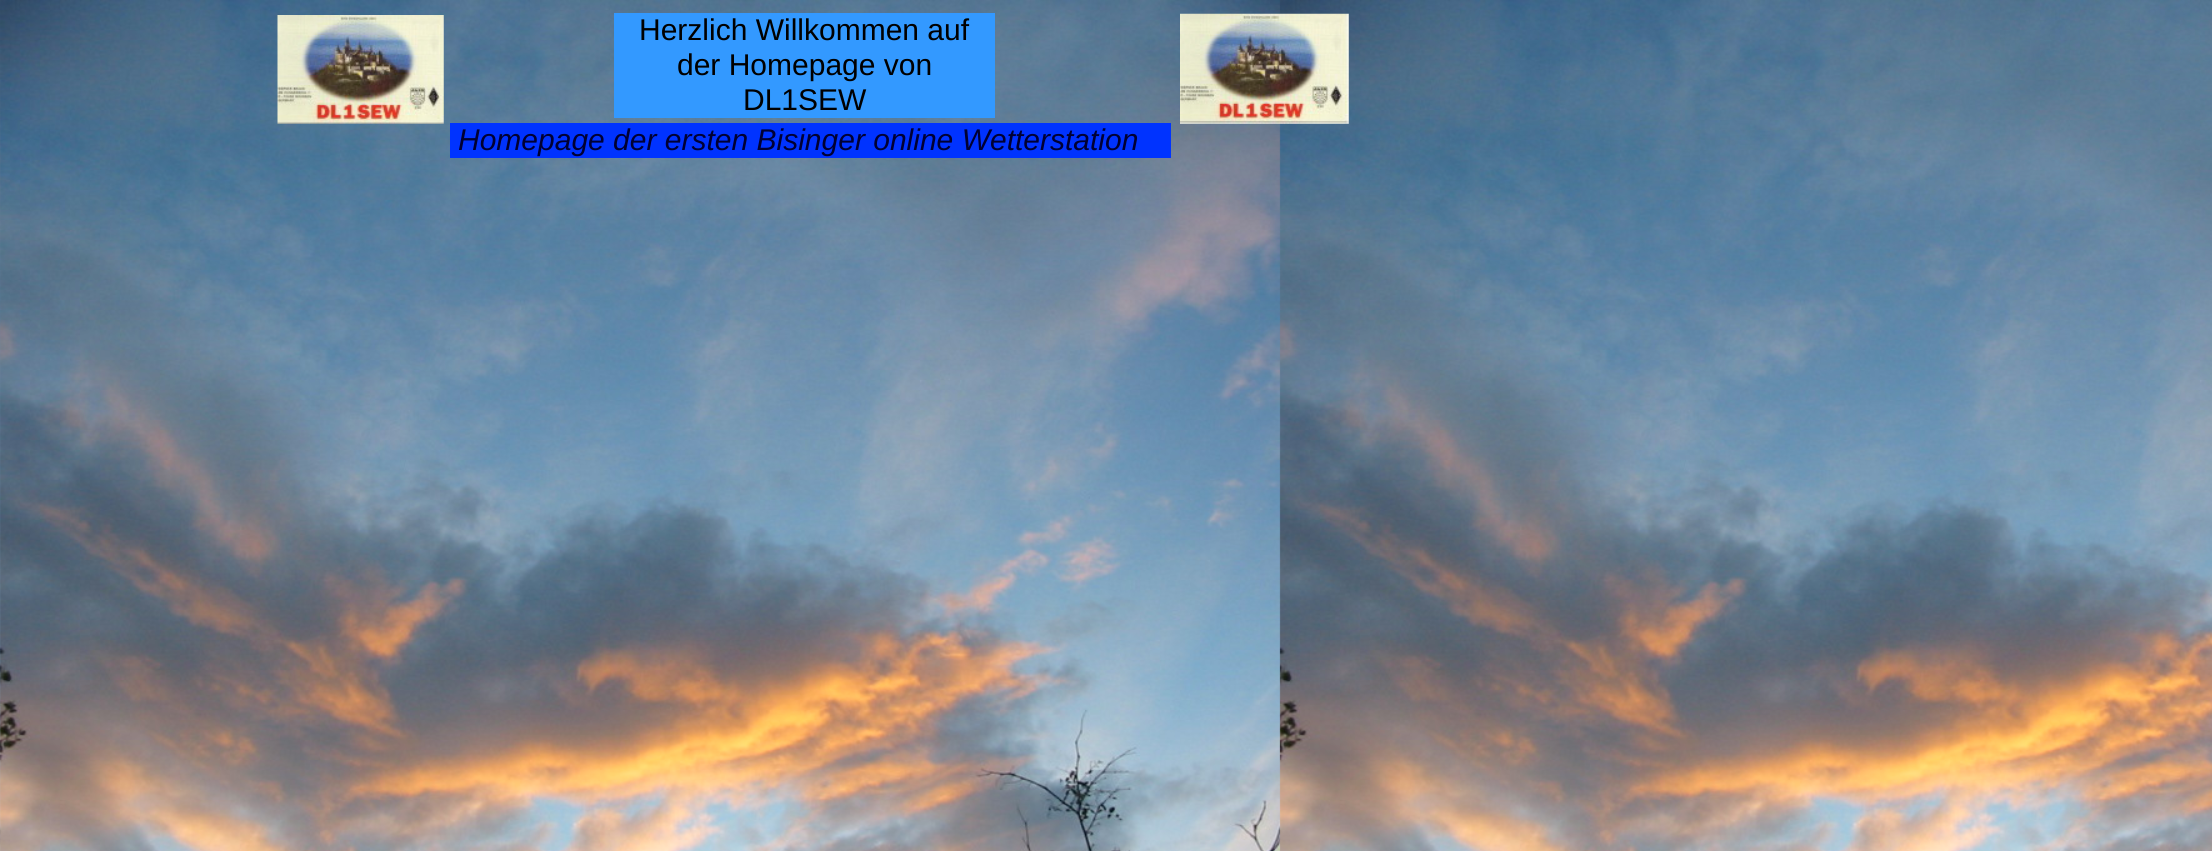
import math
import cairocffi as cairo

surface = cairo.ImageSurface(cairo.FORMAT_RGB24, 2212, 851)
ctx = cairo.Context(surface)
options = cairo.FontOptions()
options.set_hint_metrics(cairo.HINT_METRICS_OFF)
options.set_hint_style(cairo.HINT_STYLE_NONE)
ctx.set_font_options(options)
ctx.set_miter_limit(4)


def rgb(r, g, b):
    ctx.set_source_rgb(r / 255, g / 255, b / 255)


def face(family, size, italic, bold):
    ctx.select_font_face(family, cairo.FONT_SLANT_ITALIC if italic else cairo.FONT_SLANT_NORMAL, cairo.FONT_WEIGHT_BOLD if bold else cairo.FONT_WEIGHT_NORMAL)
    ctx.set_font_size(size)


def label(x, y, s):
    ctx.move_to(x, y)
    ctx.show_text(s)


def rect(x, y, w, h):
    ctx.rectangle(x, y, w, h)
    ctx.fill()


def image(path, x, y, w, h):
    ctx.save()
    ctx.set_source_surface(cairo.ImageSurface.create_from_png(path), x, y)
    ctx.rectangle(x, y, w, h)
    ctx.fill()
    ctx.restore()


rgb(255, 255, 255)
ctx.paint()
image('image0.png', 0, 0, 2212, 851)
image('image1.png', 277, 15, 167, 109)
rgb(51, 153, 255)
rect(614, 13, 381, 105)
face('Liberation Sans', 30, 0, 0)
rgb(0, 0, 0)
label(639, 40, 'Herzlich Willkommen auf')
label(677, 75, 'der Homepage von')
label(743, 110, 'DL1SEW')
rgb(0, 51, 255)
rect(450, 123, 721, 35)
face('Liberation Sans', 30, 1, 0)
rgb(0, 0, 51)
label(458, 150, 'Homepage der ersten Bisinger online Wetterstation')
image('image2.png', 1180, 13, 169, 111)
surface.write_to_png('render.png')
